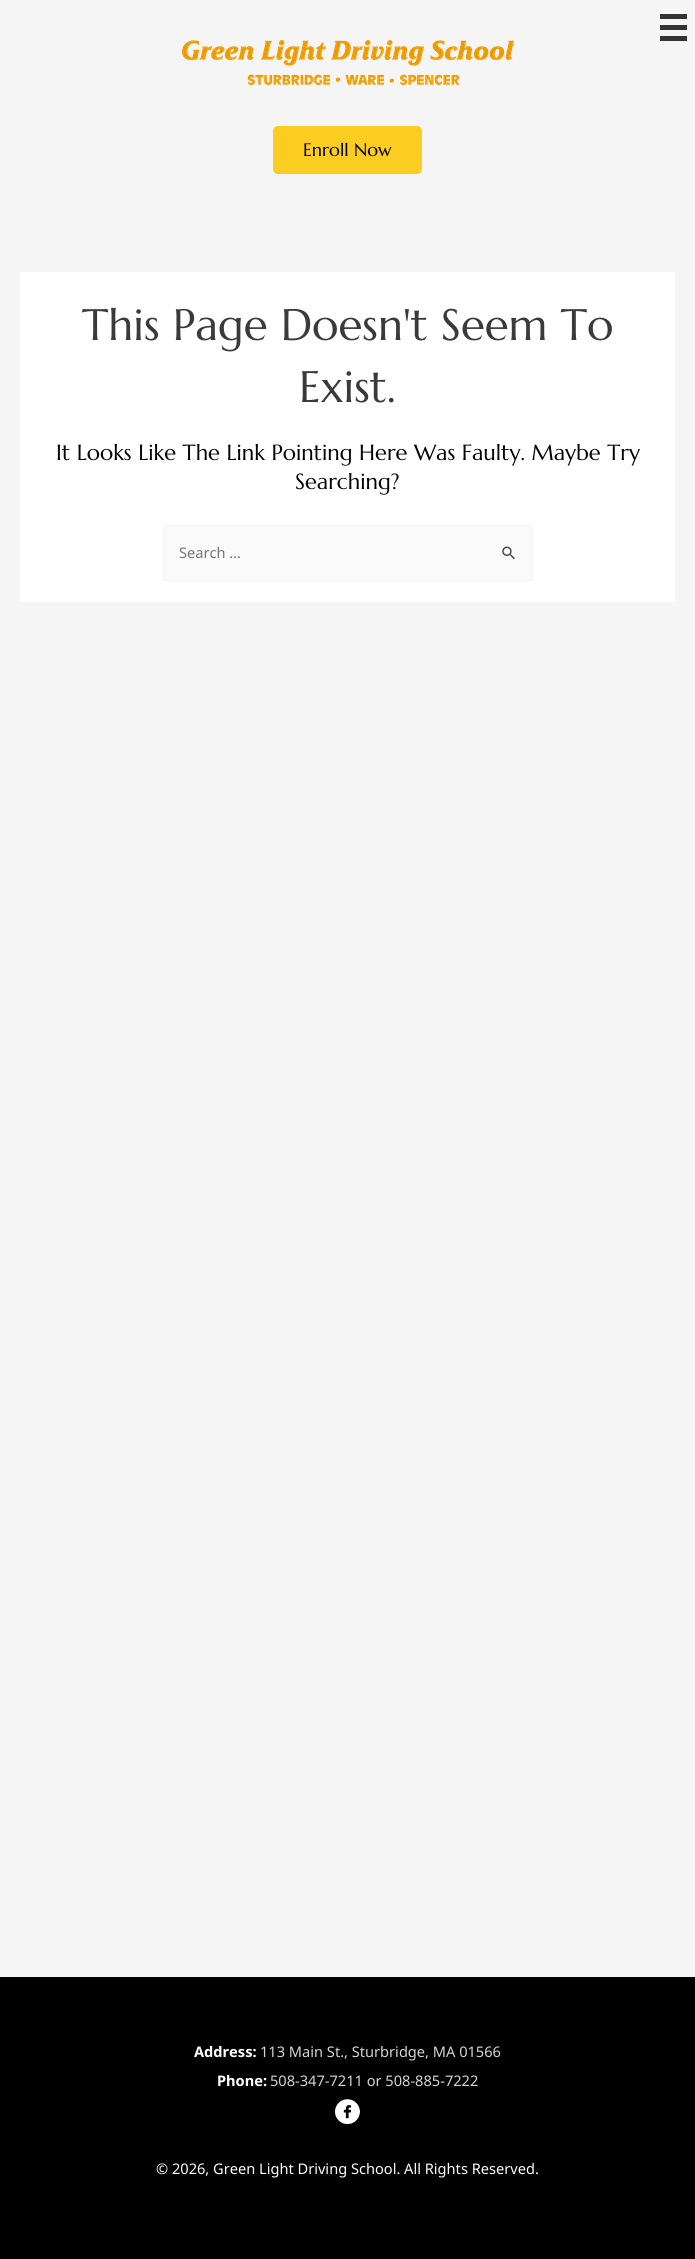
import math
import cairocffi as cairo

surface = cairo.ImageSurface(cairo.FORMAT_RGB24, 695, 2259)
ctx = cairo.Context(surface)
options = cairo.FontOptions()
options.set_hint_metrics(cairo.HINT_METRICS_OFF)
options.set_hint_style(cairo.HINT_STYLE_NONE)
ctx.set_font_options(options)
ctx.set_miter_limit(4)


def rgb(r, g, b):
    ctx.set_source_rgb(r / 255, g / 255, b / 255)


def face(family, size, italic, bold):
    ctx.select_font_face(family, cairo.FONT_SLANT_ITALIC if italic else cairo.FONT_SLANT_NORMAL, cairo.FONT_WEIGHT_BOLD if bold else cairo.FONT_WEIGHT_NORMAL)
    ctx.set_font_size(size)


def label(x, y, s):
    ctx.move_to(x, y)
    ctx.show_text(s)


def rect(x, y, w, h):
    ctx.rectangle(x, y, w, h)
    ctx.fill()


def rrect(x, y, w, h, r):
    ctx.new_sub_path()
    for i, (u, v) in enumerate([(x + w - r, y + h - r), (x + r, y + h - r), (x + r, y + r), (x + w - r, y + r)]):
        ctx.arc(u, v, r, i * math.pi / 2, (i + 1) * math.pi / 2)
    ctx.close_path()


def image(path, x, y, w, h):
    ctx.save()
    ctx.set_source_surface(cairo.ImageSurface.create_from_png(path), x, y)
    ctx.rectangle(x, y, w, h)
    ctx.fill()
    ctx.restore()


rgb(245, 245, 245)
ctx.paint()
rgb(51, 51, 51)
rect(660, 14, 27, 5)
rect(660, 25, 27, 5)
rect(660, 36, 27, 5)
image('image0.png', 182, 40, 332, 45)
rgb(250, 205, 32)
rrect(273, 126, 149, 48, 5)
ctx.fill()
face('Marcellus', 18, 0, 0)
rgb(0, 0, 0)
label(303, 156, 'Enroll Now')
rgb(255, 255, 255)
rect(20, 272, 655, 330)
face('Marcellus', 44, 0, 0)
rgb(58, 58, 58)
label(82, 340, 'This Page Doesn\'t Seem To')
label(299, 402, 'Exist.')
face('Marcellus', 21.9, 0, 0)
rgb(10, 0, 1)
label(56, 460, 'It Looks Like The Link Pointing Here Was Faulty. Maybe Try')
label(295, 489, 'Searching?')
rgb(250, 250, 250)
rrect(163.5, 525.5, 369, 55, 1.5)
ctx.fill_preserve()
rgb(242, 245, 247)
ctx.set_line_width(1)
ctx.stroke()
face('Noto Sans', 14.6, 0, 0)
rgb(117, 117, 117)
label(179, 558, 'Search …')
image('image1.png', 502, 546, 13, 14)
rgb(0, 0, 0)
rect(0, 1977, 695, 282)
face('Noto Sans', 14.6, 0, 1)
rgb(255, 255, 255)
label(194, 2057, 'Address:')
face('Noto Sans', 14.6, 0, 0)
rgb(213, 213, 213)
label(260, 2057, '113 Main St., Sturbridge, MA 01566')
face('Noto Sans', 14.6, 0, 1)
rgb(255, 255, 255)
label(217, 2086, 'Phone:')
face('Noto Sans', 14.6, 0, 0)
rgb(213, 213, 213)
label(270, 2086, '508-347-7211 or 508-885-7222')
image('image2.png', 335, 2099, 25, 25)
rgb(255, 255, 255)
label(156, 2174, '© 2026, Green Light Driving School. All Rights Reserved.')
surface.write_to_png('render.png')
